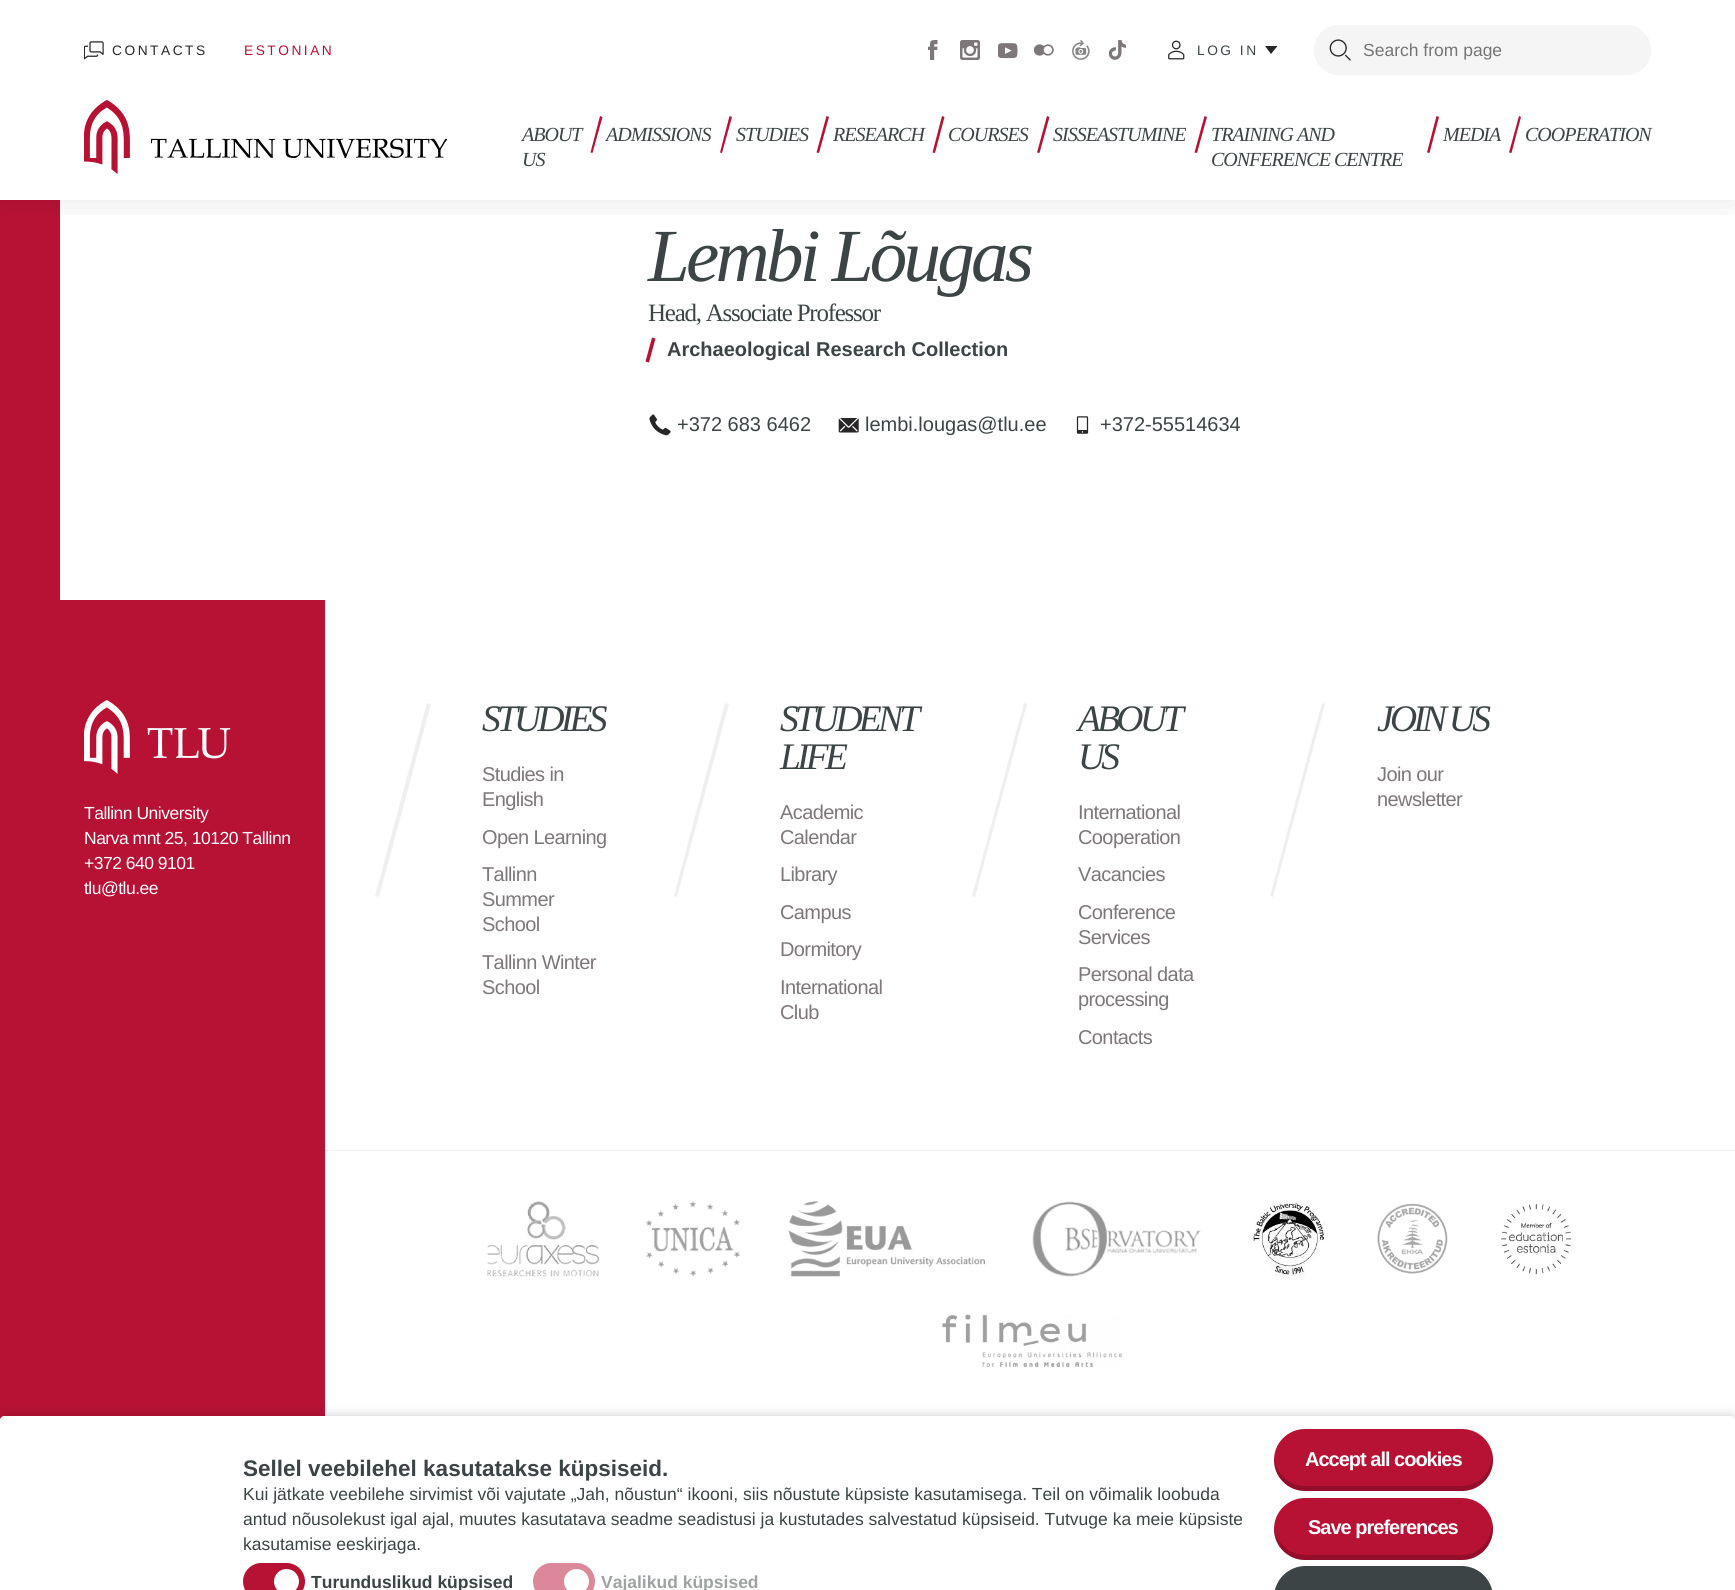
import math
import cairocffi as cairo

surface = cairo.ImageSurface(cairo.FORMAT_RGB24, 1735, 1590)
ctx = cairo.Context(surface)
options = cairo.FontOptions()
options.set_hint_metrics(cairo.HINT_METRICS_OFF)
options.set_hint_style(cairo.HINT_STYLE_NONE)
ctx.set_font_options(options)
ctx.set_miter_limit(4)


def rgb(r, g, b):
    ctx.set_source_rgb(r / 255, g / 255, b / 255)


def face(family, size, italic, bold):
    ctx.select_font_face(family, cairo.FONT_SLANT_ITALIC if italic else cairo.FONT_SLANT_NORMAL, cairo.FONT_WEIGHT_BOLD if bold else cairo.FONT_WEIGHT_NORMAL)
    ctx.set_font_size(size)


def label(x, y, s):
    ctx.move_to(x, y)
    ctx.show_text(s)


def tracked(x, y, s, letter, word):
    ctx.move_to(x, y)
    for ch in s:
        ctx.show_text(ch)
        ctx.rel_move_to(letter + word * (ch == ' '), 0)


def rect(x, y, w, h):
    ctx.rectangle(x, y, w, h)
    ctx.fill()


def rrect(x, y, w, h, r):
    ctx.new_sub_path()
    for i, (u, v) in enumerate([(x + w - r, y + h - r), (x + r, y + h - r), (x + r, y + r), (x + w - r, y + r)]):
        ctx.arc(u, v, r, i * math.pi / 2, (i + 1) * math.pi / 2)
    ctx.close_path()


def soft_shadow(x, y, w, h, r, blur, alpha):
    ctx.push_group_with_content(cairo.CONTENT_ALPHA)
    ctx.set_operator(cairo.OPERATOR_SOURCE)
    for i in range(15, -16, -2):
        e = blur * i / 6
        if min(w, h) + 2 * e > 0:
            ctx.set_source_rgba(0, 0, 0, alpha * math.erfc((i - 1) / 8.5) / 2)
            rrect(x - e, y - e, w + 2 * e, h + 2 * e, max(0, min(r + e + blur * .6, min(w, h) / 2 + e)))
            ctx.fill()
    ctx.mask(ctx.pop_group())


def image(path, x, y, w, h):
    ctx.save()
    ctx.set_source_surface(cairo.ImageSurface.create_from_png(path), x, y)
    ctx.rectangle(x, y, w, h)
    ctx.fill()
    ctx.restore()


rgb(255, 255, 255)
ctx.paint()
rgb(183, 18, 52)
rect(0, 200, 60, 400)
ctx.save()
ctx.rectangle(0, 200, 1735, 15)
ctx.clip()
rgb(0, 0, 0)
soft_shadow(0, 0, 1735, 200, 0, 17.5, 0.1)
ctx.restore()
rgb(245, 245, 245)
rrect(1314, 25, 337, 50, 25)
ctx.fill()
image('image0.png', 1329, 39, 22, 22)
rrect(1315.5, 26.5, 334, 47, 23.5)
ctx.set_line_width(3)
ctx.stroke()
face('Liberation Sans', 17.5, 0, 0)
rgb(117, 117, 117)
label(1363, 56, 'Search from page')
image('image1.png', 84, 100, 364, 75)
face('Liberation Serif', 20, 1, 0)
rgb(60, 68, 69)
tracked(522, 141, 'ABOUT', -1, 0)
tracked(522, 166, 'US', -1, 0)
rgb(183, 18, 52)
ctx.new_path()
ctx.move_to(600, 116)
ctx.line_to(602.5, 117)
ctx.line_to(592.5, 153)
ctx.line_to(590.5, 152.5)
ctx.close_path()
ctx.fill()
rgb(60, 68, 69)
tracked(606, 141, 'ADMISSIONS', -1, 0)
rgb(183, 18, 52)
ctx.new_path()
ctx.move_to(729.5, 116)
ctx.line_to(732, 117)
ctx.line_to(722, 153)
ctx.line_to(720, 152.5)
ctx.close_path()
ctx.fill()
rgb(60, 68, 69)
tracked(736, 141, 'STUDIES', -1, 0)
rgb(183, 18, 52)
ctx.new_path()
ctx.move_to(826.5, 116)
ctx.line_to(829, 117)
ctx.line_to(819, 153)
ctx.line_to(816.5, 152.5)
ctx.close_path()
ctx.fill()
rgb(60, 68, 69)
tracked(833, 141, 'RESEARCH', -1, 0)
rgb(183, 18, 52)
ctx.new_path()
ctx.move_to(942, 116)
ctx.line_to(944.5, 117)
ctx.line_to(935, 153)
ctx.line_to(932.5, 152.5)
ctx.close_path()
ctx.fill()
rgb(60, 68, 69)
tracked(948, 141, 'COURSES', -1, 0)
rgb(183, 18, 52)
ctx.new_path()
ctx.move_to(1047, 116)
ctx.line_to(1049.5, 117)
ctx.line_to(1039.5, 153)
ctx.line_to(1037, 152.5)
ctx.close_path()
ctx.fill()
rgb(60, 68, 69)
tracked(1053, 141, 'SISSEASTUMINE', -1, 0)
rgb(183, 18, 52)
ctx.new_path()
ctx.move_to(1204.5, 116)
ctx.line_to(1207, 117)
ctx.line_to(1197, 153)
ctx.line_to(1194.5, 152.5)
ctx.close_path()
ctx.fill()
rgb(60, 68, 69)
tracked(1211, 141, 'TRAINING AND', -1, 0)
tracked(1211, 166, 'CONFERENCE CENTRE', -1, 0)
rgb(183, 18, 52)
ctx.new_path()
ctx.move_to(1436.5, 116)
ctx.line_to(1439, 117)
ctx.line_to(1429.5, 153)
ctx.line_to(1427, 152.5)
ctx.close_path()
ctx.fill()
rgb(60, 68, 69)
tracked(1443, 141, 'MEDIA', -1, 0)
rgb(183, 18, 52)
ctx.new_path()
ctx.move_to(1519, 116)
ctx.line_to(1521, 117)
ctx.line_to(1511.5, 153)
ctx.line_to(1509, 152.5)
ctx.close_path()
ctx.fill()
rgb(60, 68, 69)
tracked(1525, 141, 'COOPERATION', -1, 0)
image('image2.png', 84, 41, 20, 19)
face('Liberation Sans', 13.75, 0, 0)
rgb(40, 38, 39)
tracked(112, 55, 'CONTACTS', 2.5, 0)
rgb(183, 18, 52)
tracked(244, 55, 'ESTONIAN', 2.5, 0)
image('image3.png', 928, 40, 10, 20)
image('image4.png', 960, 40, 20, 20)
image('image5.png', 998, 43, 20, 16)
image('image6.png', 1034, 44, 20, 12)
image('image7.png', 1072, 40, 18, 20)
image('image8.png', 1109, 40, 17, 20)
image('image9.png', 1168, 40, 17, 20)
rgb(60, 68, 69)
tracked(1197, 55, 'LOG IN', 2.5, 0)
rgb(40, 38, 39)
ctx.new_path()
ctx.move_to(1265, 46)
ctx.line_to(1277.5, 46)
ctx.line_to(1271, 54)
ctx.close_path()
ctx.fill()
face('Liberation Serif', 75, 1, 0)
rgb(60, 68, 69)
tracked(648, 281, 'Lembi Lõugas', -3.75, 0)
face('Liberation Serif', 25, 0, 0)
tracked(648, 321, 'Head, Associate Professor', -1.25, 0)
rgb(183, 18, 52)
ctx.new_path()
ctx.move_to(652, 337.5)
ctx.line_to(655.5, 338.5)
ctx.line_to(649, 362.5)
ctx.line_to(645.5, 361.5)
ctx.close_path()
ctx.fill()
face('Liberation Sans', 20, 0, 1)
rgb(60, 68, 69)
label(667, 356, 'Archaeological Research Collection')
image('image10.png', 649, 414, 22, 22)
face('Liberation Sans', 20, 0, 0)
label(677, 431, '+372 683 6462')
image('image11.png', 838, 418, 21, 15)
label(865, 431, 'lembi.lougas@tlu.ee')
image('image12.png', 1076, 416, 13, 18)
label(1100, 431, '+372-55514634')
rgb(183, 18, 52)
rect(0, 600, 325, 820)
rgb(239, 239, 239)
ctx.new_path()
ctx.move_to(427, 703)
ctx.line_to(431, 704)
ctx.line_to(379, 897)
ctx.line_to(375, 896)
ctx.close_path()
ctx.fill()
face('Liberation Serif', 37.5, 1, 0)
rgb(60, 68, 69)
tracked(482, 731, 'STUDIES', -3.75, 0)
face('Liberation Sans', 20, 0, 0)
rgb(125, 119, 121)
tracked(482, 781, 'Studies in', -0.6, 0)
tracked(482, 806, 'English', -0.6, 0)
tracked(482, 844, 'Open Learning', -0.6, 0)
tracked(482, 881, 'Tallinn', -0.6, 0)
tracked(482, 906, 'Summer', -0.6, 0)
tracked(482, 931, 'School', -0.6, 0)
tracked(482, 969, 'Tallinn Winter', -0.6, 0)
tracked(482, 994, 'School', -0.6, 0)
rgb(239, 239, 239)
ctx.new_path()
ctx.move_to(725, 703)
ctx.line_to(729, 704)
ctx.line_to(677, 897)
ctx.line_to(674, 896)
ctx.close_path()
ctx.fill()
face('Liberation Serif', 37.5, 1, 0)
rgb(60, 68, 69)
tracked(780, 731, 'STUDENT', -3.75, 0)
tracked(780, 769, 'LIFE', -3.75, 0)
face('Liberation Sans', 20, 0, 0)
rgb(125, 119, 121)
tracked(780, 819, 'Academic', -0.6, 0)
tracked(780, 844, 'Calendar', -0.6, 0)
tracked(780, 881, 'Library', -0.6, 0)
tracked(780, 919, 'Campus', -0.6, 0)
tracked(780, 956, 'Dormitory', -0.6, 0)
tracked(780, 994, 'International', -0.6, 0)
tracked(780, 1019, 'Club', -0.6, 0)
rgb(239, 239, 239)
ctx.new_path()
ctx.move_to(1024, 703)
ctx.line_to(1027, 704)
ctx.line_to(975, 897)
ctx.line_to(972, 896)
ctx.close_path()
ctx.fill()
face('Liberation Serif', 37.5, 1, 0)
rgb(60, 68, 69)
tracked(1078, 731, 'ABOUT', -3.75, 0)
tracked(1078, 769, 'US', -3.75, 0)
face('Liberation Sans', 20, 0, 0)
rgb(125, 119, 121)
tracked(1078, 819, 'International', -0.6, 0)
tracked(1078, 844, 'Cooperation', -0.6, 0)
tracked(1078, 881, 'Vacancies', -0.6, 0)
tracked(1078, 919, 'Conference', -0.6, 0)
tracked(1078, 944, 'Services', -0.6, 0)
tracked(1078, 981, 'Personal data', -0.6, 0)
tracked(1078, 1006, 'processing', -0.6, 0)
tracked(1078, 1044, 'Contacts', -0.6, 0)
rgb(239, 239, 239)
ctx.new_path()
ctx.move_to(1322, 703)
ctx.line_to(1325, 704)
ctx.line_to(1273, 897)
ctx.line_to(1270, 896)
ctx.close_path()
ctx.fill()
face('Liberation Serif', 37.5, 1, 0)
rgb(60, 68, 69)
tracked(1377, 731, 'JOIN US', -3.75, 0)
face('Liberation Sans', 20, 0, 0)
rgb(125, 119, 121)
tracked(1377, 781, 'Join our', -0.6, 0)
tracked(1377, 806, 'newsletter', -0.6, 0)
image('image13.png', 84, 700, 147, 74)
face('Liberation Sans', 17.5, 0, 0)
rgb(255, 255, 255)
tracked(84, 819, 'Tallinn University', -0.5, 0)
tracked(84, 844, 'Narva mnt 25, 10120 Tallinn', -0.5, 0)
tracked(84, 869, '+372 640 9101', -0.5, 0)
tracked(84, 894, 'tlu@tlu.ee', -0.5, 0)
rgb(239, 239, 239)
rect(325, 1150, 1410, 1)
image('image14.png', 487, 1201, 112, 76)
image('image15.png', 646, 1201, 94, 76)
image('image16.png', 788, 1201, 197, 76)
image('image17.png', 1032, 1201, 169, 76)
image('image18.png', 1250, 1201, 75, 75)
image('image19.png', 1377, 1203, 71, 71)
image('image20.png', 1501, 1203, 71, 72)
image('image21.png', 942, 1314, 180, 54)
rgb(0, 0, 0)
soft_shadow(0, 1416, 1735, 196, 4, 6, 0.2)
rgb(255, 255, 255)
ctx.new_path()
ctx.move_to(4, 1416)
ctx.line_to(1731, 1416)
ctx.curve_to(1733, 1416, 1735, 1418, 1735, 1420)
ctx.line_to(1735, 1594)
ctx.line_to(0, 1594)
ctx.line_to(0, 1420)
ctx.curve_to(0, 1418, 2, 1416, 4, 1416)
ctx.close_path()
ctx.fill()
face('Liberation Sans', 22.5, 0, 1)
rgb(60, 68, 69)
label(243, 1476, 'Sellel veebilehel kasutatakse küpsiseid.')
face('Liberation Sans', 17.5, 0, 0)
label(243, 1500, 'Kui jätkate veebilehe sirvimist või vajutate „Jah, nõustun“ ikooni, siis nõustute küpsiste kasutamisega. Teil on võimalik loobuda')
label(243, 1525, 'antud nõusolekust igal ajal, muutes kasutatava seadme seadistusi ja kustutades salvestatud küpsiseid. Tutvuge ka meie küpsiste')
label(243, 1550, 'kasutamise eeskirjaga.')
rgb(183, 18, 52)
rrect(243, 1563, 62, 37, 18.5)
ctx.fill()
rgb(255, 255, 255)
ctx.arc(286.5, 1581.5, 12.5, 0, 2 * math.pi)
ctx.fill()
face('Liberation Sans', 17.5, 0, 1)
rgb(60, 68, 69)
label(311, 1588, 'Turunduslikud küpsised')
rgb(219, 137, 154)
rrect(533, 1563, 62, 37, 18.5)
ctx.fill()
rgb(255, 255, 255)
ctx.arc(576.5, 1581.5, 12.5, 0, 2 * math.pi)
ctx.fill()
rgb(158, 162, 162)
label(601, 1588, 'Vajalikud küpsised')
rgb(183, 18, 52)
rrect(1274, 1429, 219, 62, 31)
ctx.fill()
ctx.set_source_rgba(0, 0, 0, 0.2)
ctx.new_path()
ctx.move_to(1274, 1457)
ctx.line_to(1274, 1460)
ctx.curve_to(1274, 1477, 1288, 1491, 1305, 1491)
ctx.line_to(1462, 1491)
ctx.curve_to(1479, 1491, 1493, 1477, 1493, 1460)
ctx.curve_to(1493, 1457, 1493, 1454, 1492, 1451)
ctx.line_to(1492, 1455)
ctx.curve_to(1492, 1472, 1479, 1486, 1461, 1486)
ctx.line_to(1305, 1486)
ctx.curve_to(1289, 1486, 1275, 1473, 1274, 1457)
ctx.close_path()
ctx.fill()
face('Liberation Sans', 20, 0, 1)
rgb(255, 255, 255)
tracked(1305, 1466, 'Accept all cookies', -1, 0)
rgb(183, 18, 52)
rrect(1274, 1498, 219, 62, 31)
ctx.fill()
ctx.set_source_rgba(0, 0, 0, 0.2)
ctx.new_path()
ctx.move_to(1274, 1526)
ctx.line_to(1274, 1529)
ctx.curve_to(1274, 1546, 1288, 1560, 1305, 1560)
ctx.line_to(1462, 1560)
ctx.curve_to(1479, 1560, 1493, 1546, 1493, 1529)
ctx.curve_to(1493, 1526, 1493, 1523, 1492, 1521)
ctx.line_to(1492, 1524)
ctx.curve_to(1492, 1541, 1479, 1555, 1461, 1555)
ctx.line_to(1305, 1555)
ctx.curve_to(1289, 1555, 1275, 1542, 1274, 1526)
ctx.close_path()
ctx.fill()
rgb(255, 255, 255)
tracked(1308, 1534, 'Save preferences', -1, 0)
rgb(60, 68, 69)
rrect(1274, 1566, 219, 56, 31.5)
ctx.fill()
rgb(48, 55, 55)
ctx.new_path()
ctx.move_to(1274, 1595)
ctx.line_to(1274, 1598)
ctx.curve_to(1274, 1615, 1288, 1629, 1306, 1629)
ctx.line_to(1462, 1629)
ctx.curve_to(1479, 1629, 1493, 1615, 1493, 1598)
ctx.curve_to(1493, 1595, 1493, 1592, 1492, 1589)
ctx.line_to(1492, 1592)
ctx.curve_to(1492, 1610, 1479, 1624, 1461, 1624)
ctx.line_to(1305, 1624)
ctx.curve_to(1289, 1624, 1275, 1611, 1274, 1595)
ctx.close_path()
ctx.fill()
surface.write_to_png('render.png')
